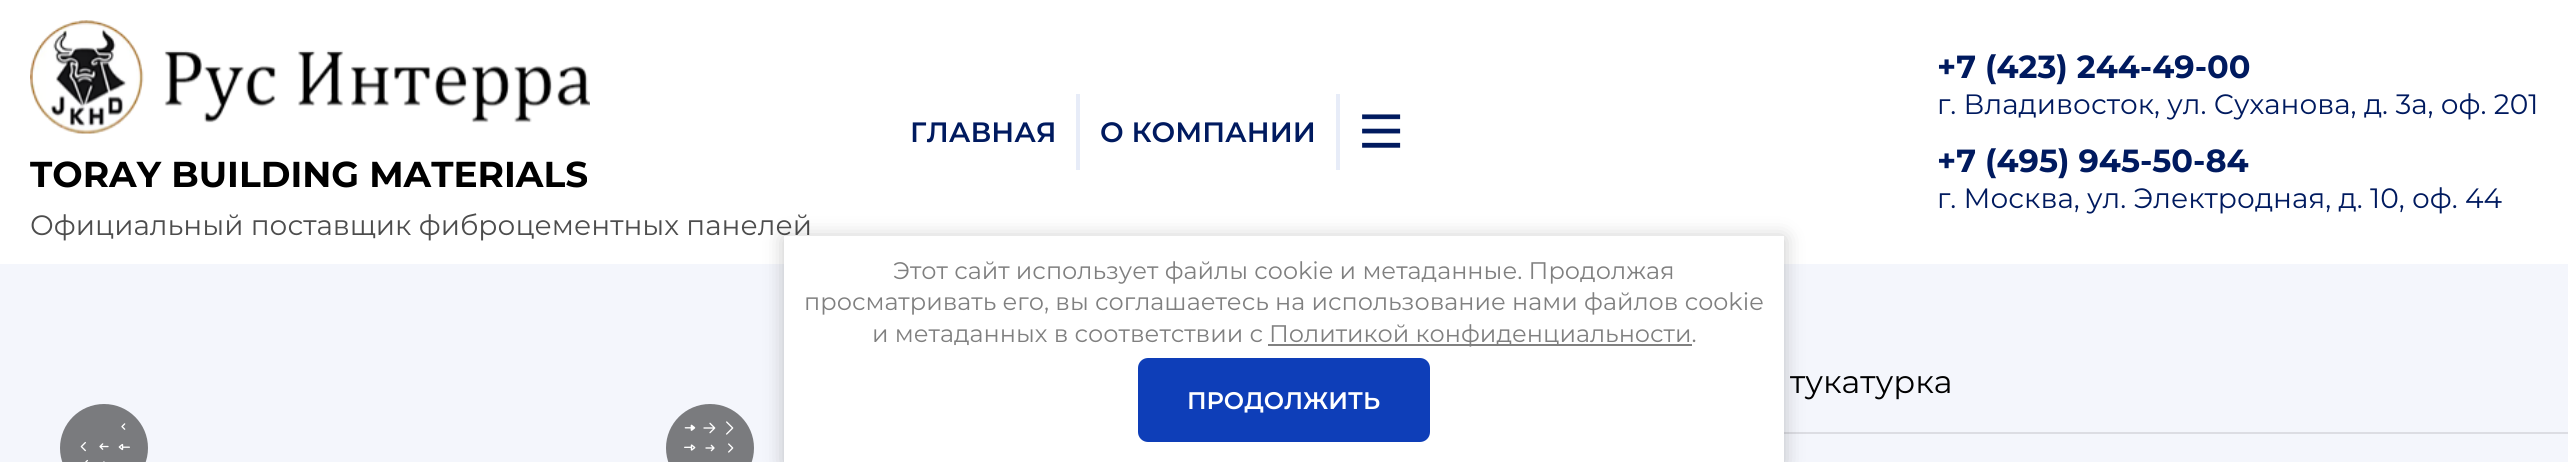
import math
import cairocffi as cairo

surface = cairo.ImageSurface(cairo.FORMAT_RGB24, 2568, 462)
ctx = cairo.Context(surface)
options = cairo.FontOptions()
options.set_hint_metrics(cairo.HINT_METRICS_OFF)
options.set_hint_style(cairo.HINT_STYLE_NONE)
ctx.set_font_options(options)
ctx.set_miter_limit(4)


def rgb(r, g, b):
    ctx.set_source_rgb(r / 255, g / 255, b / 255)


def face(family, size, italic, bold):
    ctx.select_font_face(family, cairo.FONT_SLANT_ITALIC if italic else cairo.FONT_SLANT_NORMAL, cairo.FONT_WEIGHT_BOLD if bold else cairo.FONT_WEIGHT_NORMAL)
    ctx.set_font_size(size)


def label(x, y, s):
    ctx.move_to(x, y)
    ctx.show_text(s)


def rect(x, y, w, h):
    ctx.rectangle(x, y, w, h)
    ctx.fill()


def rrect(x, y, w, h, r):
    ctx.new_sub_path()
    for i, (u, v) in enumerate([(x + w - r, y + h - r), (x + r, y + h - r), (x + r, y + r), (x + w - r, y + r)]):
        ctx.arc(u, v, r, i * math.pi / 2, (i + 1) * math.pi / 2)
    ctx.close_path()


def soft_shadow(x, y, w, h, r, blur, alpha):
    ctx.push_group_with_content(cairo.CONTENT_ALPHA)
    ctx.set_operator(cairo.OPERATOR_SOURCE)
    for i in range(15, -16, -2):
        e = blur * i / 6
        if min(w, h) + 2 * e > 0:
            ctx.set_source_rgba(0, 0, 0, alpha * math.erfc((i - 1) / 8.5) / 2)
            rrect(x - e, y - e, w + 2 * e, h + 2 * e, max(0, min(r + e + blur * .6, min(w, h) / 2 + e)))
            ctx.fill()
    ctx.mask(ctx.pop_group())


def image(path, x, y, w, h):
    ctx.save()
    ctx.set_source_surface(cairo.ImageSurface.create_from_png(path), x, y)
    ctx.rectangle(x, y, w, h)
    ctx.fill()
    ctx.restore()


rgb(244, 246, 252)
ctx.paint()
rgb(255, 255, 255)
rect(0, 0, 2568, 264)
face('Montserrat SemiBold', 28, 0, 0)
rgb(0, 26, 95)
label(910, 142, 'ГЛАВНАЯ')
rgb(231, 236, 248)
rect(1076, 94, 4, 76)
rgb(0, 26, 95)
label(1100, 142, 'О КОМПАНИИ')
rgb(231, 236, 248)
rect(1336, 94, 4, 76)
image('image0.png', 1362, 114, 39, 34)
face('Montserrat', 32, 0, 1)
rgb(0, 26, 95)
label(1937, 78, '+7 (423) 244-49-00')
face('Montserrat', 28, 0, 0)
label(1937, 114, 'г. Владивосток, ул. Суханова, д. 3а, оф. 201')
face('Montserrat', 32, 0, 1)
label(1937, 172, '+7 (495) 945-50-84')
face('Montserrat', 28, 0, 0)
label(1937, 208, 'г. Москва, ул. Электродная, д. 10, оф. 44')
image('image1.png', 30, 20, 560, 114)
face('Montserrat', 36, 0, 1)
rgb(0, 0, 0)
label(30, 187, 'TORAY BUILDING MATERIALS')
face('Montserrat', 28, 0, 0)
rgb(77, 77, 77)
label(30, 235, 'Официальный поставщик фиброцементных панелей')
rgb(220, 221, 227)
rect(1784, 432, 784, 2)
rgb(122, 123, 126)
ctx.new_path()
ctx.arc(710, 448, 44, 0, 2 * math.pi)
ctx.fill()
rgb(0, 0, 0)
soft_shadow(784, 238, 1000, 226, 0, 10, 0.23)
rgb(255, 255, 255)
rect(784, 236, 1000, 226)
face('Montserrat', 24, 0, 0)
rgb(128, 128, 128)
label(893, 279, 'Этот сайт использует файлы cookie и метаданные. Продолжая')
label(804, 310, 'просматривать его, вы соглашаетесь на использование нами файлов cookie')
label(872, 342, 'и метаданных в соответствии с')
rect(1268, 344, 424, 2)
label(1269, 342, 'Политикой конфиденциальности.')
rgb(14, 62, 184)
rrect(1138, 358, 292, 84, 10)
ctx.fill()
face('Montserrat SemiBold', 24, 0, 0)
rgb(255, 255, 255)
label(1187, 409, 'ПРОДОЛЖИТЬ')
face('Montserrat', 32, 0, 0)
rgb(0, 0, 0)
label(1790, 393, 'тукатурка')
rgb(122, 123, 126)
ctx.new_path()
ctx.arc(104, 448, 44, 0, 2 * math.pi)
ctx.fill()
image('image2.png', 80, 423, 50, 39)
image('image3.png', 684, 421, 50, 32)
surface.write_to_png('render.png')
